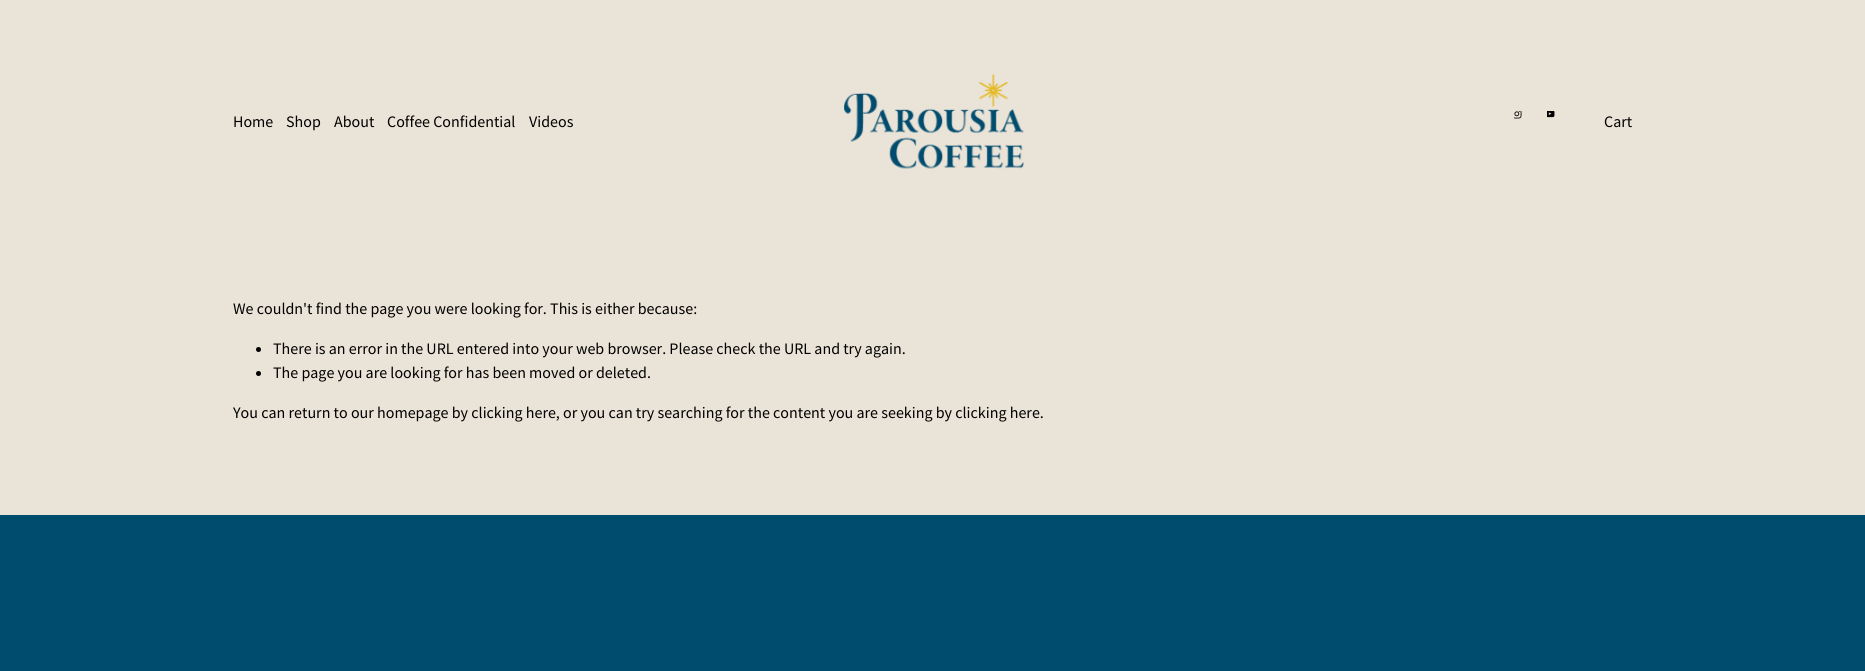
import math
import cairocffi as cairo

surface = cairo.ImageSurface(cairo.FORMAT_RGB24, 1865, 671)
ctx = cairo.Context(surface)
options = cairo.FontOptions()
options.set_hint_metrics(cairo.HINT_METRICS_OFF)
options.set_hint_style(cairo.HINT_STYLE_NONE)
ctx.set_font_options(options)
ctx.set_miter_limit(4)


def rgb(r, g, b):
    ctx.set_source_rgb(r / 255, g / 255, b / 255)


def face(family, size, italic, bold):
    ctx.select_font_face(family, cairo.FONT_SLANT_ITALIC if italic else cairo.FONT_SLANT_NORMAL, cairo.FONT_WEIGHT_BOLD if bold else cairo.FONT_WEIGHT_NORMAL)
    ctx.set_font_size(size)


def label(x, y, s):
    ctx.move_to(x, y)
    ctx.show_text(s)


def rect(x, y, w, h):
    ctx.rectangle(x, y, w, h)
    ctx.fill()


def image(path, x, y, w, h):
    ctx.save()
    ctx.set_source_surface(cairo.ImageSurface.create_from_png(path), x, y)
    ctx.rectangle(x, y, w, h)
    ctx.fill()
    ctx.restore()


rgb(234, 227, 215)
ctx.paint()
face('Source Sans Pro', 16, 0, 0)
rgb(0, 0, 0)
label(233, 127, 'Home')
label(286, 127, 'Shop')
label(334, 127, 'About')
label(387, 127, 'Coffee Confidential')
label(529, 127, 'Videos')
image('image0.png', 844, 74, 180, 95)
image('image1.png', 1514, 111, 8, 8)
image('image2.png', 1547, 111, 8, 7)
label(1604, 127, 'Cart')
label(233, 314, 'We couldn\'t find the page you were looking for. This is either because:')
ctx.new_path()
ctx.arc(258.5, 349.5, 2.5, 0, 2 * math.pi)
ctx.fill()
label(273, 354, 'There is an error in the URL entered into your web browser. Please check the URL and try again.')
ctx.new_path()
ctx.arc(258.5, 373.5, 2.5, 0, 2 * math.pi)
ctx.fill()
label(273, 378, 'The page you are looking for has been moved or deleted.')
label(233, 418, 'You can return to our homepage by clicking here, or you can try searching for the content you are seeking by clicking here.')
rgb(0, 76, 110)
rect(0, 515, 1865, 156)
surface.write_to_png('render.png')
